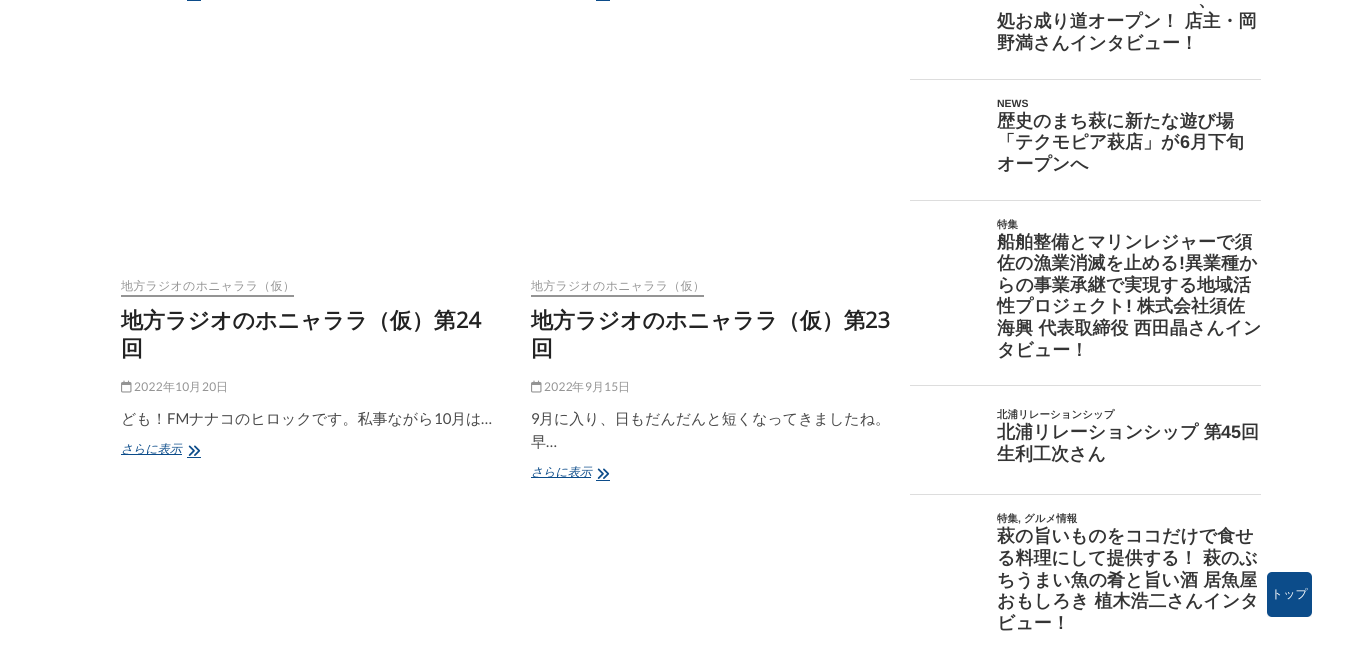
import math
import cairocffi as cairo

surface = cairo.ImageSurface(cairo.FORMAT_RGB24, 1352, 657)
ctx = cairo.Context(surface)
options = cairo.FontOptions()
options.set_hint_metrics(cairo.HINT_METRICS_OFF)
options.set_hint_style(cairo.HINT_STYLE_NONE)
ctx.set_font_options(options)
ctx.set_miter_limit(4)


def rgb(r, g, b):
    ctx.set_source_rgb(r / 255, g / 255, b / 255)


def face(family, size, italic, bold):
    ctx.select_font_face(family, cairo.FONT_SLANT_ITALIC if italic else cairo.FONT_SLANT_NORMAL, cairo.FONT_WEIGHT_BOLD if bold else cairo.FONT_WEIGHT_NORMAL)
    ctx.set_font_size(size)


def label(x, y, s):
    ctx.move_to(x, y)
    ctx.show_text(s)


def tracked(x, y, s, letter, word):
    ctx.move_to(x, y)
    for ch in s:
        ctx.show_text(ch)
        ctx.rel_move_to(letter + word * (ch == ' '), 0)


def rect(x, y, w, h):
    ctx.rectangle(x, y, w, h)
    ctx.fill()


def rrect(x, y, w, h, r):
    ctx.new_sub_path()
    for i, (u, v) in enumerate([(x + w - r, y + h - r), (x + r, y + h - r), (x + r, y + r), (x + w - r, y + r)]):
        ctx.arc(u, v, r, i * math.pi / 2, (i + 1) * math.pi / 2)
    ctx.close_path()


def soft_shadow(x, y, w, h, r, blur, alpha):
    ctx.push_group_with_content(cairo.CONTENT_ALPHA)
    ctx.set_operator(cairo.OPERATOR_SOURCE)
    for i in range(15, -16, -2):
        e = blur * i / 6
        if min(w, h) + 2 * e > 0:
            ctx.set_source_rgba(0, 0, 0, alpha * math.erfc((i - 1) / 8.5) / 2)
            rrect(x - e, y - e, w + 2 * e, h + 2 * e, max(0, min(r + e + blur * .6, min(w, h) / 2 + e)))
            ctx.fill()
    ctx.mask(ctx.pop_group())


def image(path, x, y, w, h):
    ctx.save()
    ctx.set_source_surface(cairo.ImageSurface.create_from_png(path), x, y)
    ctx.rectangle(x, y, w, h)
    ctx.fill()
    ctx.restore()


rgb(255, 255, 255)
ctx.paint()
rgb(12, 76, 138)
rect(187, 0, 14, 1)
rect(596, 0, 14, 1)
face('WenQuanYi Zen Hei Medium', 12, 0, 0)
rgb(148, 148, 148)
tracked(121, 290, '地方ラジオのホニャララ（仮）', 0.25, 0)
rect(121, 295, 173, 2)
face('WenQuanYi Zen Hei', 22, 0, 1)
rgb(34, 34, 34)
label(121, 328, '地方ラジオのホニャララ（仮）第')
face('Open Sans', 22, 0, 1)
label(456, 328, '24')
face('WenQuanYi Zen Hei', 22, 0, 1)
label(121, 356, '回')
image('image0.png', 121, 380, 11, 13)
face('Lato', 12, 0, 0)
rgb(148, 148, 148)
tracked(134, 391, '2022', 0.25, 0)
face('WenQuanYi Zen Hei Medium', 12, 0, 0)
tracked(163, 391, '年', 0.25, 0)
face('Lato', 12, 0, 0)
tracked(175, 391, '10', 0.25, 0)
face('WenQuanYi Zen Hei Medium', 12, 0, 0)
tracked(189, 391, '月', 0.25, 0)
face('Lato', 12, 0, 0)
tracked(202, 391, '20', 0.25, 0)
face('WenQuanYi Zen Hei Medium', 12, 0, 0)
tracked(216, 391, '日', 0.25, 0)
face('WenQuanYi Zen Hei Medium', 15, 0, 0)
rgb(72, 72, 72)
label(121, 424, 'ども！')
face('Lato', 15, 0, 0)
label(167, 424, 'FM')
face('WenQuanYi Zen Hei Medium', 15, 0, 0)
label(189, 424, 'ナナコのヒロックです。私事ながら')
face('Lato', 15, 0, 0)
label(434, 424, '10')
face('WenQuanYi Zen Hei Medium', 15, 0, 0)
label(451, 424, '月は')
face('Lato', 15, 0, 0)
label(481, 424, '…')
rgb(12, 76, 138)
rect(121, 454, 61, 1)
face('WenQuanYi Zen Hei Medium', 12, 1, 0)
label(121, 453, 'さらに表示')
image('image1.png', 188, 445, 13, 11)
rect(187, 457, 14, 1)
ctx.save()
ctx.rectangle(531, 276, 379, 30)
ctx.clip()
face('WenQuanYi Zen Hei Medium', 12, 0, 0)
rgb(148, 148, 148)
tracked(531, 290, '地方ラジオのホニャララ（仮）', 0.25, 0)
ctx.restore()
rgb(148, 148, 148)
rect(531, 295, 173, 2)
face('WenQuanYi Zen Hei', 22, 0, 1)
rgb(34, 34, 34)
label(531, 328, '地方ラジオのホニャララ（仮）第')
face('Open Sans', 22, 0, 1)
label(865, 328, '23')
face('WenQuanYi Zen Hei', 22, 0, 1)
label(531, 356, '回')
image('image0.png', 531, 380, 11, 13)
face('Lato', 12, 0, 0)
rgb(148, 148, 148)
tracked(544, 391, '2022', 0.25, 0)
face('WenQuanYi Zen Hei Medium', 12, 0, 0)
tracked(572, 391, '年', 0.25, 0)
face('Lato', 12, 0, 0)
tracked(585, 391, '9', 0.25, 0)
face('WenQuanYi Zen Hei Medium', 12, 0, 0)
tracked(592, 391, '月', 0.25, 0)
face('Lato', 12, 0, 0)
tracked(604, 391, '15', 0.25, 0)
face('WenQuanYi Zen Hei Medium', 12, 0, 0)
tracked(618, 391, '日', 0.25, 0)
face('Lato', 15, 0, 0)
rgb(72, 72, 72)
label(531, 424, '9')
face('WenQuanYi Zen Hei Medium', 15, 0, 0)
label(539, 424, '月に入り、日もだんだんと短くなってきましたね。')
label(531, 447, '早')
face('Lato', 15, 0, 0)
label(546, 447, '…')
rgb(12, 76, 138)
rect(531, 477, 60, 1)
face('WenQuanYi Zen Hei Medium', 12, 1, 0)
label(531, 476, 'さらに表示')
image('image1.png', 597, 468, 13, 11)
rect(596, 480, 14, 1)
rgb(221, 221, 221)
rect(910, 79, 351, 1)
face('WenQuanYi Zen Hei', 18, 0, 1)
rgb(52, 52, 52)
label(1198, 6, '、')
label(997, 27, '処お成り道オープン！ 店主・岡')
label(997, 49, '野満さんインタビュー！')
rgb(221, 221, 221)
rect(910, 200, 351, 1)
face('Liberation Sans', 10.5, 0, 1)
rgb(52, 52, 52)
label(997, 107, 'NEWS')
face('WenQuanYi Zen Hei', 18, 0, 1)
label(997, 127, '歴史のまち萩に新たな遊び場')
label(997, 148, '「テクモピア萩店」が')
face('Liberation Sans', 18, 0, 1)
label(1180, 148, '6')
face('WenQuanYi Zen Hei', 18, 0, 1)
label(1190, 148, '月下旬')
label(997, 170, 'オープンへ')
rgb(221, 221, 221)
rect(910, 385, 351, 1)
face('WenQuanYi Zen Hei', 10.5, 0, 1)
rgb(52, 52, 52)
label(997, 228, '特集')
face('WenQuanYi Zen Hei', 18, 0, 1)
label(997, 248, '船舶整備とマリンレジャーで須')
label(997, 269, '佐の漁業消滅を止める')
face('Liberation Sans', 18, 0, 1)
label(1179, 269, '!')
face('WenQuanYi Zen Hei', 18, 0, 1)
label(1185, 269, '異業種か')
label(997, 291, 'らの事業承継で実現する地域活')
label(997, 312, '性プロジェクト')
face('Liberation Sans', 18, 0, 1)
label(1126, 312, '!')
face('WenQuanYi Zen Hei', 18, 0, 1)
label(1137, 312, '株式会社須佐')
label(997, 334, '海興 代表取締役 西田晶さんイン')
label(997, 356, 'タビュー！')
rgb(221, 221, 221)
rect(910, 494, 351, 1)
face('WenQuanYi Zen Hei', 10.5, 0, 1)
rgb(52, 52, 52)
label(997, 418, '北浦リレーションシップ')
face('WenQuanYi Zen Hei', 18, 0, 1)
label(997, 438, '北浦リレーションシップ 第')
face('Liberation Sans', 18, 0, 1)
label(1221, 438, '45')
face('WenQuanYi Zen Hei', 18, 0, 1)
label(1241, 438, '回')
label(997, 460, '生利工次さん')
face('WenQuanYi Zen Hei', 10.5, 0, 1)
label(997, 522, '特集')
face('Liberation Sans', 10.5, 0, 1)
rgb(72, 72, 72)
label(1018, 522, ',')
face('WenQuanYi Zen Hei', 10.5, 0, 1)
rgb(52, 52, 52)
label(1024, 522, 'グルメ情報')
face('WenQuanYi Zen Hei', 18, 0, 1)
label(997, 542, '萩の旨いものをココだけで食せ')
label(997, 564, 'る料理にして提供する！ 萩のぶ')
label(997, 586, 'ちうまい魚の肴と旨い酒 居魚屋')
label(997, 607, 'おもしろき 植木浩二さんインタ')
label(997, 629, 'ビュー！')
ctx.save()
ctx.rectangle(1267, 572, 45, 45)
ctx.clip()
rgb(0, 0, 0)
soft_shadow(1267, 574, 45, 45, 5, 1.5, 0.08)
ctx.restore()
rgb(12, 76, 138)
rrect(1267, 572, 45, 45, 5)
ctx.fill()
face('WenQuanYi Zen Hei Medium', 12, 0, 0)
rgb(255, 255, 255)
label(1271, 598, 'トップ')
surface.write_to_png('render.png')
